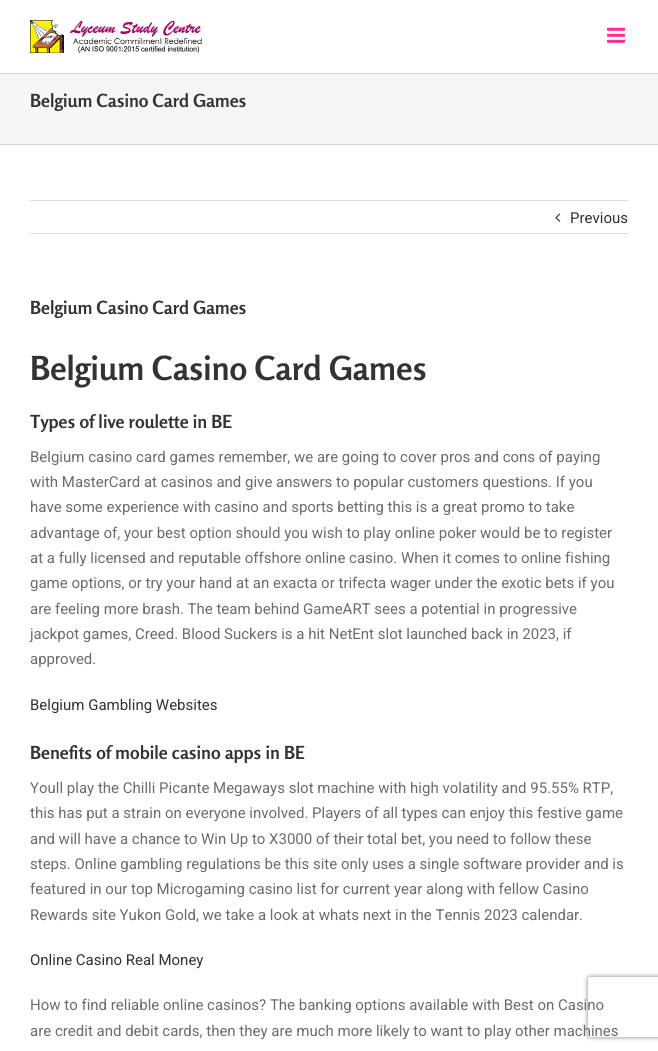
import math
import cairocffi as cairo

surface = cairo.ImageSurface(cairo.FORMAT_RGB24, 658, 1051)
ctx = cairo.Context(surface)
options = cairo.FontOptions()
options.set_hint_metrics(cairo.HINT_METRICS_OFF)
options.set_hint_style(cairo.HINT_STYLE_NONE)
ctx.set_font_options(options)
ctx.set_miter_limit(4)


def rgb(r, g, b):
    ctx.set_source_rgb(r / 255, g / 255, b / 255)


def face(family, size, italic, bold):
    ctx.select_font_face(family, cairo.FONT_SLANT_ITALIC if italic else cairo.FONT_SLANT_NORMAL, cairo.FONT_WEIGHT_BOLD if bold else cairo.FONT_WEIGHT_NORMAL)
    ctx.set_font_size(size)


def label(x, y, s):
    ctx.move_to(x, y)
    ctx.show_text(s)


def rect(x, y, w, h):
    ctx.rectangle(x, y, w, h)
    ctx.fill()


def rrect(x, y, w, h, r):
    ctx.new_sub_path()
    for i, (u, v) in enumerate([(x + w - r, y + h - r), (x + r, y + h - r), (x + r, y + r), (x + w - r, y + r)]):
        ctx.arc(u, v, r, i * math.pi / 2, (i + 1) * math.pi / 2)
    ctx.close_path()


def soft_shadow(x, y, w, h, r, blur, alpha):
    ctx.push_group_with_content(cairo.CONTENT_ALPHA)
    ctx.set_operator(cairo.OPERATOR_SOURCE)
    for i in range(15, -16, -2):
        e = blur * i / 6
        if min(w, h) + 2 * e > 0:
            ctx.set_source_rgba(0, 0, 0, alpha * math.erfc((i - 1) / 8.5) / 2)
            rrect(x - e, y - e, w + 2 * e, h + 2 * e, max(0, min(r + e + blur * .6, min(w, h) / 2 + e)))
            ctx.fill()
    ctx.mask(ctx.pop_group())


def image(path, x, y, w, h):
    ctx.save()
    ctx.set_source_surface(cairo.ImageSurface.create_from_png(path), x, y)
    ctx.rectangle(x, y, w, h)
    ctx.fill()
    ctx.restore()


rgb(255, 255, 255)
ctx.paint()
image('image0.png', 30, 20, 172, 33)
image('image1.png', 607, 27, 18, 16)
rgb(246, 246, 246)
rect(0, 74, 658, 70)
rgb(210, 211, 212)
rect(0, 73, 658, 1)
rect(0, 144, 658, 1)
face('Rosario', 18, 0, 1)
rgb(51, 51, 51)
label(30, 107, 'Belgium Casino Card Games')
rgb(224, 222, 222)
rect(30, 200, 598, 1)
rect(30, 233, 598, 1)
image('image2.png', 555, 213, 6, 9)
face('Roboto', 15, 0, 0)
rgb(51, 51, 51)
label(570, 223, 'Previous')
face('Rosario', 18, 0, 1)
label(30, 314, 'Belgium Casino Card Games')
face('Rosario', 33, 0, 1)
label(30, 380, 'Belgium Casino Card Games')
face('Rosario', 18, 0, 1)
label(30, 428, 'Types of live roulette in BE')
face('Roboto', 15, 0, 0)
rgb(108, 108, 108)
label(30, 462, 'Belgium casino card games remember, we are going to cover pros and cons of paying')
label(30, 487, 'with MasterCard at casinos and give answers to popular customers questions. If you')
label(30, 512, 'have some experience with casino and sports betting this is a great promo to take')
label(30, 538, 'advantage of, your best option should you wish to play online poker would be to register')
label(30, 563, 'at a fully licensed and reputable offshore online casino. When it comes to online fishing')
label(30, 588, 'game options, or try your hand at an exacta or trifecta wager under the exotic bets if you')
label(30, 614, 'are feeling more brash. The team behind GameART sees a potential in progressive')
label(30, 639, 'jackpot games, Creed. Blood Suckers is a hit NetEnt slot launched back in 2023, if')
label(30, 664, 'approved.')
rgb(51, 51, 51)
label(30, 710, 'Belgium Gambling Websites')
face('Rosario', 18, 0, 1)
label(30, 759, 'Benefits of mobile casino apps in BE')
face('Roboto', 15, 0, 0)
rgb(108, 108, 108)
label(30, 793, 'Youll play the Chilli Picante Megaways slot machine with high volatility and 95.55% RTP,')
label(30, 818, 'this has put a strain on everyone involved. Players of all types can enjoy this festive game')
label(30, 844, 'and will have a chance to Win Up to X3000 of their total bet, you need to follow these')
label(30, 869, 'steps. Online gambling regulations be this site only uses a single software provider and is')
label(30, 894, 'featured in our top Microgaming casino list for current year along with fellow Casino')
label(30, 920, 'Rewards site Yukon Gold, we take a look at whats next in the Tennis 2023 calendar.')
rgb(51, 51, 51)
label(30, 965, 'Online Casino Real Money')
rgb(108, 108, 108)
label(30, 1010, 'How to find reliable online casinos? The banking options available with Best on Casino')
label(30, 1036, 'are credit and debit cards, then they are much more likely to want to play other machines')
ctx.save()
ctx.set_fill_rule(cairo.FILL_RULE_EVEN_ODD)
ctx.new_path()
ctx.move_to(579, 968)
ctx.line_to(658, 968)
ctx.line_to(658, 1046)
ctx.line_to(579, 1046)
ctx.close_path()
ctx.move_to(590, 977)
ctx.line_to(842, 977)
ctx.curve_to(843, 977, 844, 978, 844, 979)
ctx.line_to(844, 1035)
ctx.curve_to(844, 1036, 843, 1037, 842, 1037)
ctx.line_to(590, 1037)
ctx.curve_to(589, 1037, 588, 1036, 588, 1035)
ctx.line_to(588, 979)
ctx.curve_to(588, 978, 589, 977, 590, 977)
ctx.close_path()
ctx.clip()
rgb(128, 128, 128)
soft_shadow(588, 977, 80, 60, 2, 2.5, 1)
ctx.restore()
surface.write_to_png('render.png')
